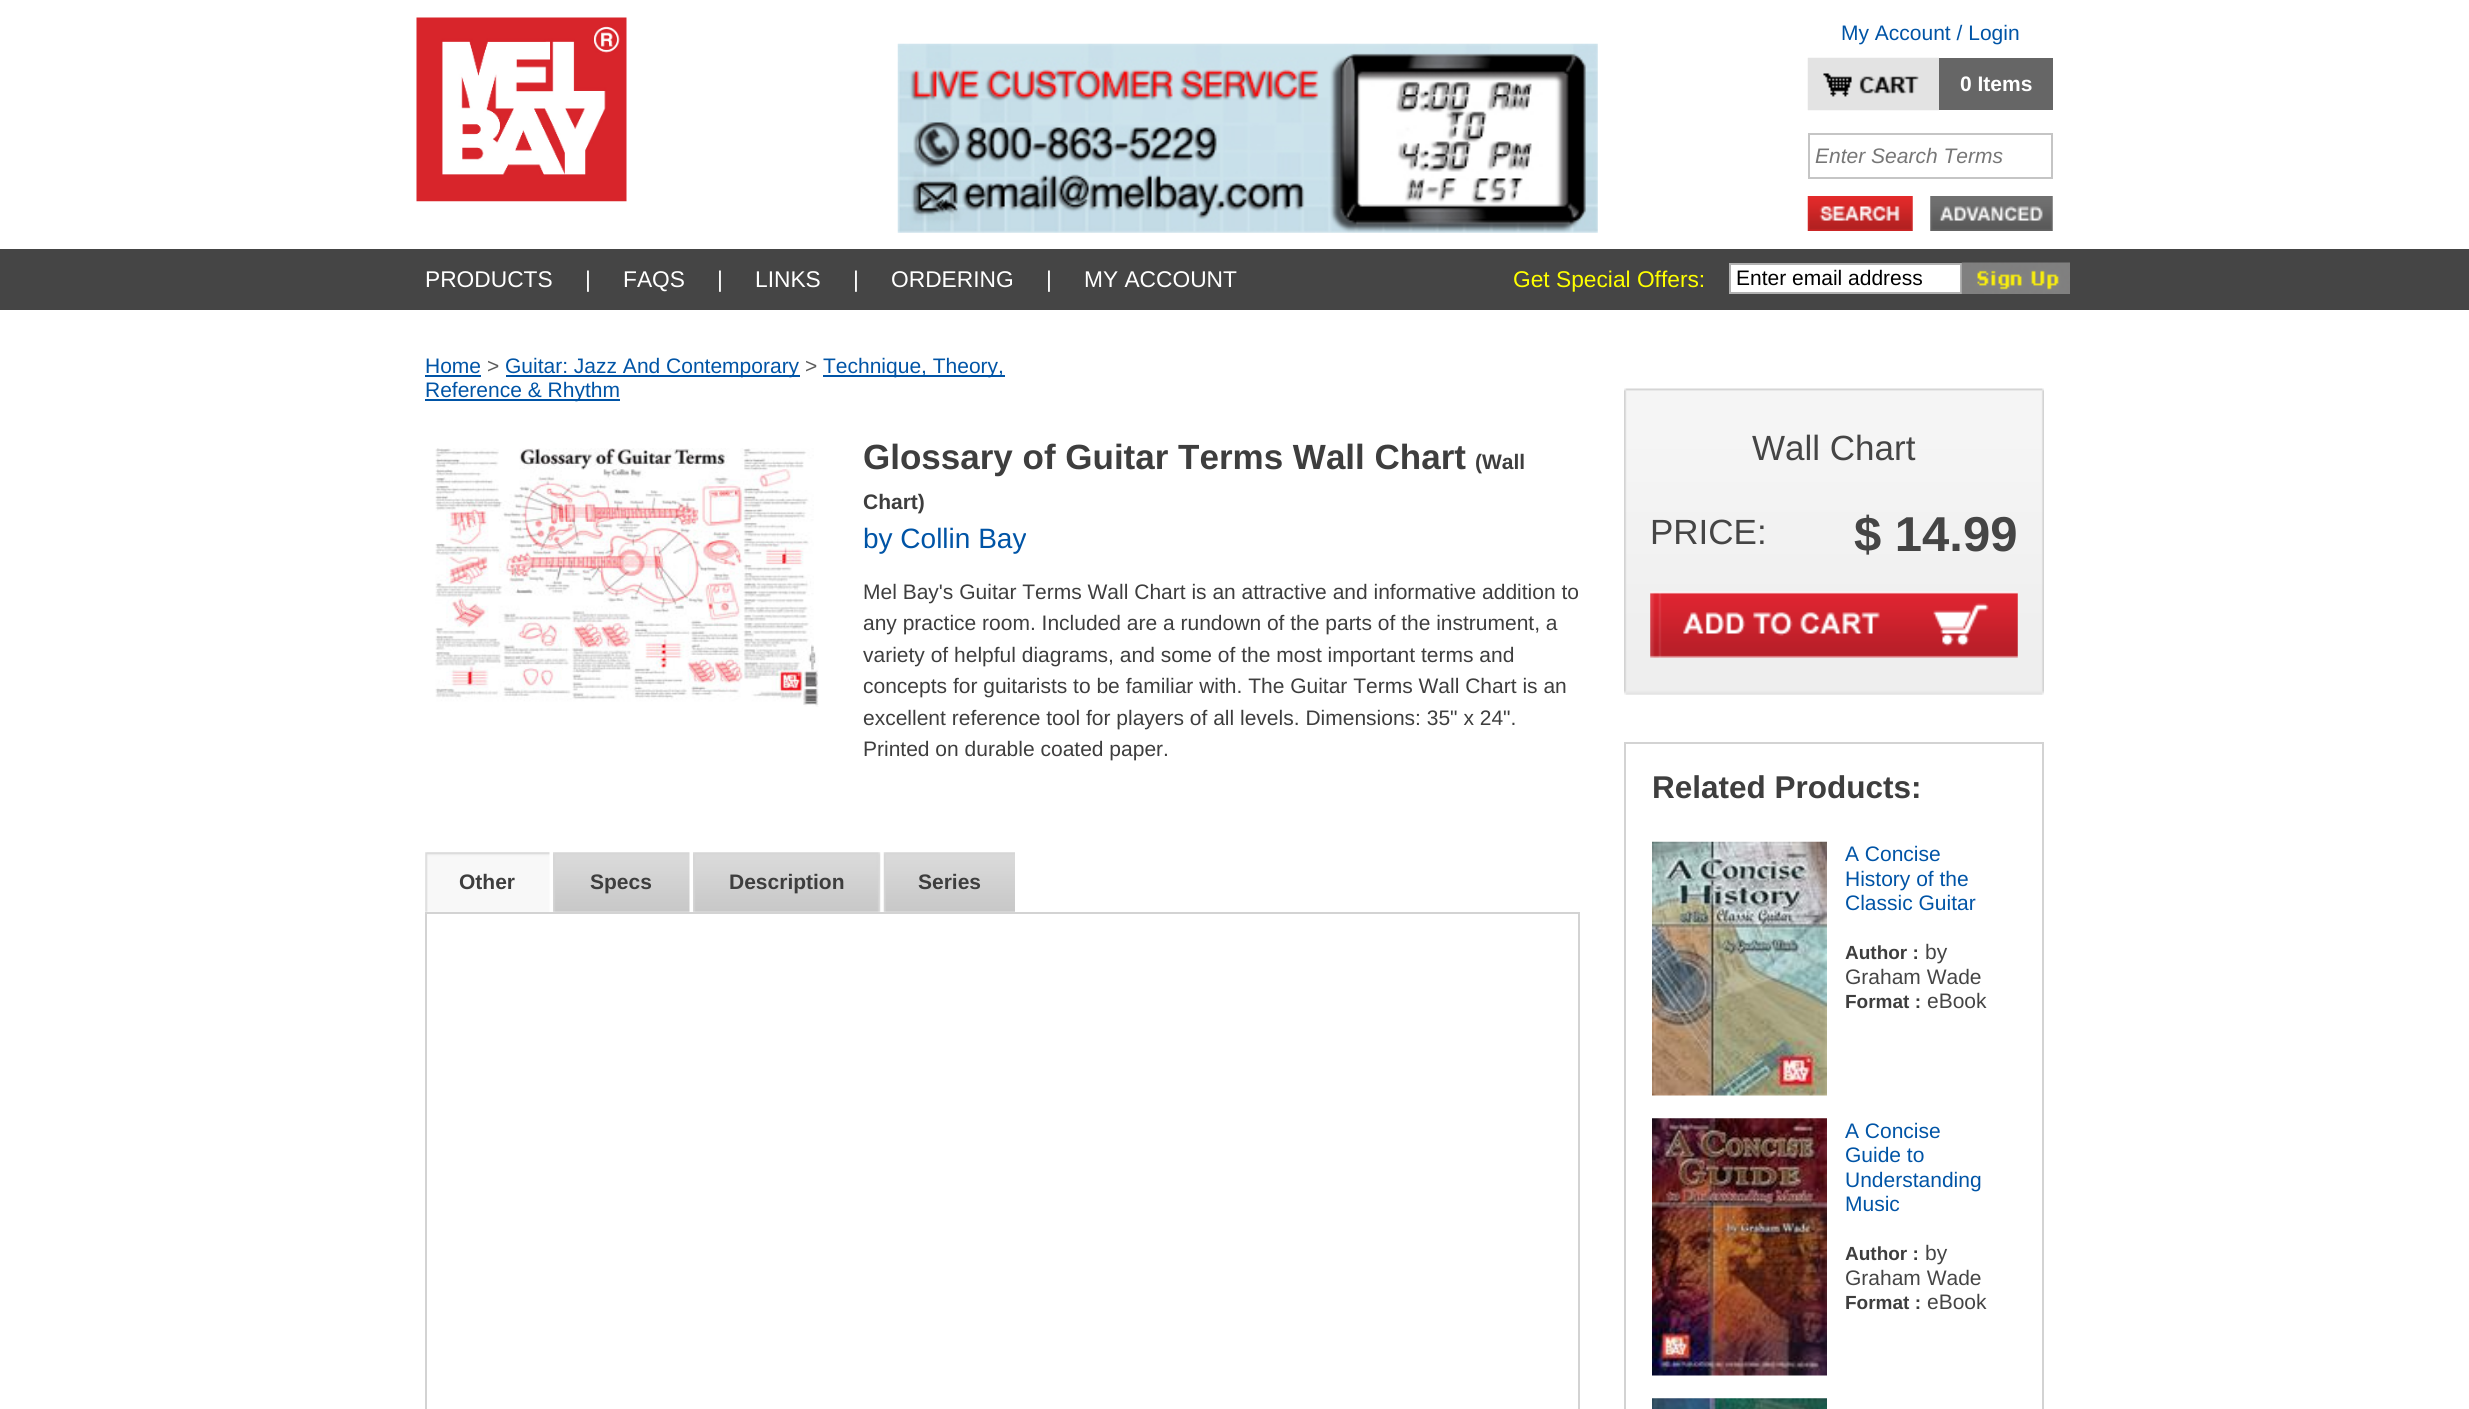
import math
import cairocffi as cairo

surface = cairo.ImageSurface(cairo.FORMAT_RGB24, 2469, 1409)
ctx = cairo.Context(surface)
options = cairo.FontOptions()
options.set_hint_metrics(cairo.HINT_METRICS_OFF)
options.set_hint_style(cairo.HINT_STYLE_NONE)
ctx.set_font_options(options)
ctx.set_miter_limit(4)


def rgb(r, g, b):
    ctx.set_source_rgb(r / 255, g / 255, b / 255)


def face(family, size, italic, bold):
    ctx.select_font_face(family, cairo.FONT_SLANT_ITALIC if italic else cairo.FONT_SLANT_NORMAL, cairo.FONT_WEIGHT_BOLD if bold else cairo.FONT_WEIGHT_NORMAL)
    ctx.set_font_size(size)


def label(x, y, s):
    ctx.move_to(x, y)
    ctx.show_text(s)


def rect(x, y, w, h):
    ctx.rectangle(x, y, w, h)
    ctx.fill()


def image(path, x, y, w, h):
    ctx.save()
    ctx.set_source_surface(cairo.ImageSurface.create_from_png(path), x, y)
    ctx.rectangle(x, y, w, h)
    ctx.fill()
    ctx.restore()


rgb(255, 255, 255)
ctx.paint()
image('image0.png', 416, 17, 211, 185)
image('image1.png', 897, 43, 701, 190)
face('Liberation Sans', 21, 0, 0)
rgb(0, 84, 166)
label(1841, 40, 'My Account / Login')
image('image2.png', 1807, 57, 132, 54)
rgb(102, 102, 102)
rect(1939, 58, 114, 52)
face('Liberation Sans', 21, 0, 1)
rgb(255, 255, 255)
label(1960, 91, '0 Items')
ctx.rectangle(1809, 134, 243, 44)
rgb(197, 197, 197)
ctx.stroke()
face('Liberation Sans', 21, 1, 0)
rgb(118, 118, 118)
label(1815, 163, 'Enter Search Terms')
image('image3.png', 1807, 196, 106, 35)
image('image4.png', 1930, 196, 123, 35)
rgb(69, 69, 69)
rect(0, 249, 2469, 61)
face('Liberation Sans', 22.75, 0, 0)
rgb(255, 255, 255)
label(425, 287, 'PRODUCTS')
label(585, 287, '|')
label(623, 287, 'FAQS')
label(717, 287, '|')
label(755, 287, 'LINKS')
label(853, 287, '|')
label(891, 287, 'ORDERING')
label(1046, 287, '|')
label(1084, 287, 'MY ACCOUNT')
rgb(255, 255, 0)
label(1513, 287, 'Get Special Offers:')
rgb(255, 255, 255)
ctx.rectangle(1730, 264, 231, 29)
ctx.fill_preserve()
rgb(178, 178, 178)
ctx.stroke()
face('Liberation Sans', 21, 0, 0)
rgb(0, 0, 0)
label(1736, 285, 'Enter email address')
image('image5.png', 1961, 262, 109, 32)
rgb(0, 84, 166)
label(425, 373, 'Home')
rect(425, 375, 56, 2)
rgb(92, 92, 92)
label(487, 373, '>')
rgb(0, 84, 166)
rect(506, 375, 294, 2)
label(505, 373, 'Guitar: Jazz And Contemporary')
rgb(92, 92, 92)
label(805, 373, '>')
rgb(0, 84, 166)
rect(823, 375, 182, 2)
label(823, 373, 'Technique, Theory,')
rect(425, 399, 195, 2)
label(425, 397, 'Reference & Rhythm')
image('image6.png', 435, 448, 384, 259)
face('Liberation Sans', 35, 0, 1)
rgb(62, 62, 62)
label(863, 469, 'Glossary of Guitar Terms Wall Chart')
face('Liberation Sans', 21, 0, 1)
label(1475, 469, '(Wall')
label(863, 509, 'Chart)')
face('Liberation Sans', 28, 0, 0)
rgb(0, 84, 166)
label(863, 548, 'by Collin Bay')
face('Liberation Sans', 21, 0, 0)
rgb(62, 62, 62)
label(863, 599, 'Mel Bay\'s Guitar Terms Wall Chart is an attractive and informative addition to')
label(863, 630, 'any practice room. Included are a rundown of the parts of the instrument, a')
label(863, 662, 'variety of helpful diagrams, and some of the most important terms and')
label(863, 693, 'concepts for guitarists to be familiar with. The Guitar Terms Wall Chart is an')
label(863, 725, 'excellent reference tool for players of all levels. Dimensions: 35" x 24".')
label(863, 756, 'Printed on durable coated paper.')
image('image7.png', 425, 852, 125, 60)
face('Liberation Sans', 21, 0, 1)
label(459, 889, 'Other')
image('image8.png', 553, 852, 137, 60)
label(590, 889, 'Specs')
image('image9.png', 693, 852, 188, 60)
label(729, 889, 'Description')
image('image10.png', 883, 852, 132, 60)
label(918, 889, 'Series')
ctx.rectangle(426, 913, 1153, 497)
rgb(211, 211, 211)
ctx.stroke()
image('image11.png', 1624, 388, 420, 307)
face('Liberation Sans', 35, 0, 0)
rgb(69, 69, 69)
label(1752, 460, 'Wall Chart')
label(1650, 544, 'PRICE:')
face('Liberation Sans', 49, 0, 1)
label(1854, 551, '$ 14.99')
image('image12.png', 1650, 591, 368, 67)
ctx.rectangle(1625, 743, 418, 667)
rgb(211, 211, 211)
ctx.stroke()
face('Liberation Sans', 31.5, 0, 1)
rgb(62, 62, 62)
label(1652, 798, 'Related Products:')
image('image13.png', 1652, 841, 175, 255)
face('Liberation Sans', 21, 0, 0)
rgb(0, 84, 166)
label(1845, 861, 'A Concise')
label(1845, 886, 'History of the')
label(1845, 910, 'Classic Guitar')
face('Liberation Sans', 19, 0, 1)
rgb(62, 62, 62)
label(1845, 959, 'Author :')
face('Liberation Sans', 21, 0, 0)
rgb(69, 69, 69)
label(1925, 959, 'by')
label(1845, 984, 'Graham Wade')
face('Liberation Sans', 19, 0, 1)
rgb(62, 62, 62)
label(1845, 1008, 'Format :')
face('Liberation Sans', 21, 0, 0)
rgb(69, 69, 69)
label(1927, 1008, 'eBook')
image('image14.png', 1652, 1118, 175, 258)
rgb(0, 84, 166)
label(1845, 1138, 'A Concise')
label(1845, 1162, 'Guide to')
label(1845, 1187, 'Understanding')
label(1845, 1211, 'Music')
face('Liberation Sans', 19, 0, 1)
rgb(62, 62, 62)
label(1845, 1260, 'Author :')
face('Liberation Sans', 21, 0, 0)
rgb(69, 69, 69)
label(1925, 1260, 'by')
label(1845, 1285, 'Graham Wade')
face('Liberation Sans', 19, 0, 1)
rgb(62, 62, 62)
label(1845, 1309, 'Format :')
face('Liberation Sans', 21, 0, 0)
rgb(69, 69, 69)
label(1927, 1309, 'eBook')
image('image15.png', 1652, 1398, 175, 11)
surface.write_to_png('render.png')
